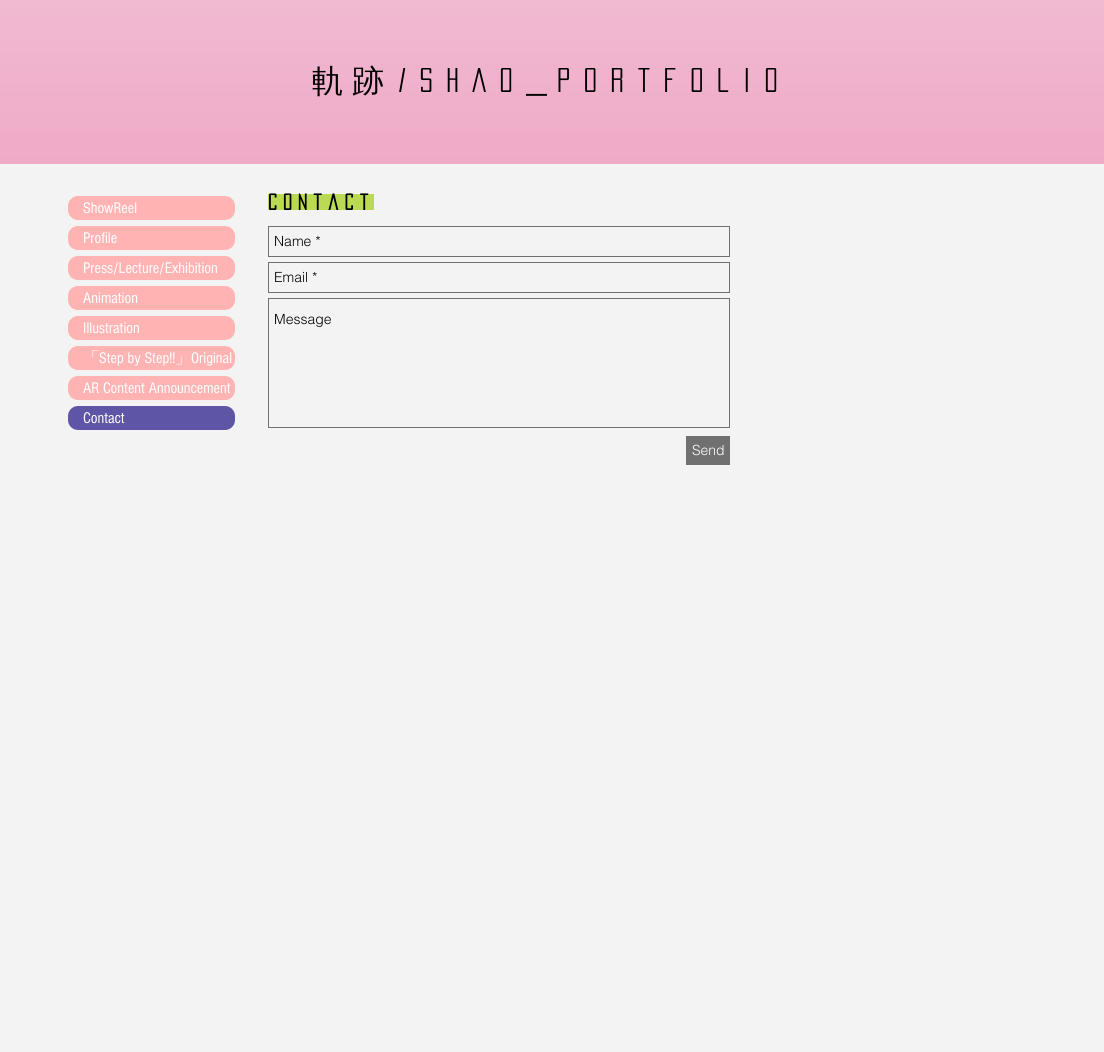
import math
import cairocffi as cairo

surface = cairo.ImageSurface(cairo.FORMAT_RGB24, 1104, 1052)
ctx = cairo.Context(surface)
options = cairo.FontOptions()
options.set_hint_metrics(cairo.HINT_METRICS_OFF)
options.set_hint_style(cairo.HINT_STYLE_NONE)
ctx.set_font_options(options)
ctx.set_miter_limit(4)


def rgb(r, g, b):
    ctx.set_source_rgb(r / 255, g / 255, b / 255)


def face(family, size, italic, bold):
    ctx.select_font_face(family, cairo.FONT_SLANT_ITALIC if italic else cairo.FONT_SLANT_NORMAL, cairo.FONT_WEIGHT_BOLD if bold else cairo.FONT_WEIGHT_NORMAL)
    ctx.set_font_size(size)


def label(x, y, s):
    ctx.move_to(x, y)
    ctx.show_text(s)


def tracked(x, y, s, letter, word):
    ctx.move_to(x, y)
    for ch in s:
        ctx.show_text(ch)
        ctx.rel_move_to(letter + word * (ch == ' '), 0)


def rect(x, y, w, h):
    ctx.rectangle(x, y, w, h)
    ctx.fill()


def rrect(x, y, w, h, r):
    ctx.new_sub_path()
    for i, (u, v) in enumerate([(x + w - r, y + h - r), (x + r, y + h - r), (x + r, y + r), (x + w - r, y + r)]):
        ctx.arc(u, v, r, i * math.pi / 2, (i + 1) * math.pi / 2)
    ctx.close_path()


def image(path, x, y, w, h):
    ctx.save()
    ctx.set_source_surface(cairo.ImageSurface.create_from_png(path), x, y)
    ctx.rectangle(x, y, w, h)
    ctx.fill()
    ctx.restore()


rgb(243, 243, 243)
ctx.paint()
rgb(237, 161, 194)
rect(0, 0, 1104, 164)
image('image0.png', 0, 0, 1104, 164)
face('WenQuanYi Zen Hei Medium', 32, 0, 0)
rgb(0, 0, 0)
tracked(312, 92, '軌', 8, 0)
tracked(352, 92, '跡', 13.5, 0)
face('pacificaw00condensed', 30, 0, 0)
tracked(398, 92, '/SHAO', 13.5, 0)
tracked(557, 92, 'portfolio', 13.5, 0)
tracked(526, 92, '_', 10, 0)
rgb(255, 179, 179)
rrect(68, 196, 167, 24, 10)
ctx.fill()
face('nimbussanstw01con', 16, 0, 0)
rgb(255, 255, 255)
label(83, 213, 'ShowReel')
rgb(255, 179, 179)
rrect(68, 226, 167, 24, 10)
ctx.fill()
rgb(255, 255, 255)
label(83, 243, 'Profile')
rgb(255, 179, 179)
rrect(68, 256, 167, 24, 10)
ctx.fill()
rgb(255, 255, 255)
label(83, 273, 'Press/Lecture/Exhibition')
rgb(255, 179, 179)
rrect(68, 286, 167, 24, 10)
ctx.fill()
rgb(255, 255, 255)
label(83, 303, 'Animation')
rgb(255, 179, 179)
rrect(68, 316, 167, 24, 10)
ctx.fill()
rgb(255, 255, 255)
label(83, 333, 'Illustration')
rgb(255, 179, 179)
rrect(68, 346, 167, 24, 10)
ctx.fill()
face('WenQuanYi Zen Hei Medium', 16, 0, 0)
rgb(255, 255, 255)
label(83, 363, '「')
face('nimbussanstw01con', 16, 0, 0)
label(99, 363, 'Step by Step!!')
face('WenQuanYi Zen Hei Medium', 16, 0, 0)
label(175, 363, '」')
face('nimbussanstw01con', 16, 0, 0)
label(191, 363, 'Original')
rgb(255, 179, 179)
rrect(68, 376, 167, 24, 10)
ctx.fill()
rgb(255, 255, 255)
label(83, 393, 'AR Content Announcement')
rgb(95, 85, 166)
rrect(68, 406, 167, 24, 10)
ctx.fill()
rgb(255, 255, 255)
label(83, 423, 'Contact')
rgb(186, 218, 85)
rect(268, 194, 106, 16)
face('pacificaw00condensed', 20, 0, 1)
rgb(0, 0, 0)
tracked(268, 210, 'Contact', 6, 0)
ctx.rectangle(268.5, 226.5, 461, 30)
rgb(113, 112, 112)
ctx.set_line_width(1)
ctx.stroke()
face('helvetica Light', 14, 0, 0)
rgb(0, 0, 0)
label(274, 246, 'Name *')
ctx.rectangle(268.5, 262.5, 461, 30)
rgb(113, 112, 112)
ctx.stroke()
rgb(0, 0, 0)
label(274, 282, 'Email *')
ctx.rectangle(268.5, 298.5, 461, 129)
rgb(113, 112, 112)
ctx.stroke()
rgb(0, 0, 0)
label(274, 324, 'Message')
rgb(113, 112, 112)
rect(686, 436, 44, 29)
rgb(255, 255, 255)
label(692, 455, 'Send')
surface.write_to_png('render.png')
